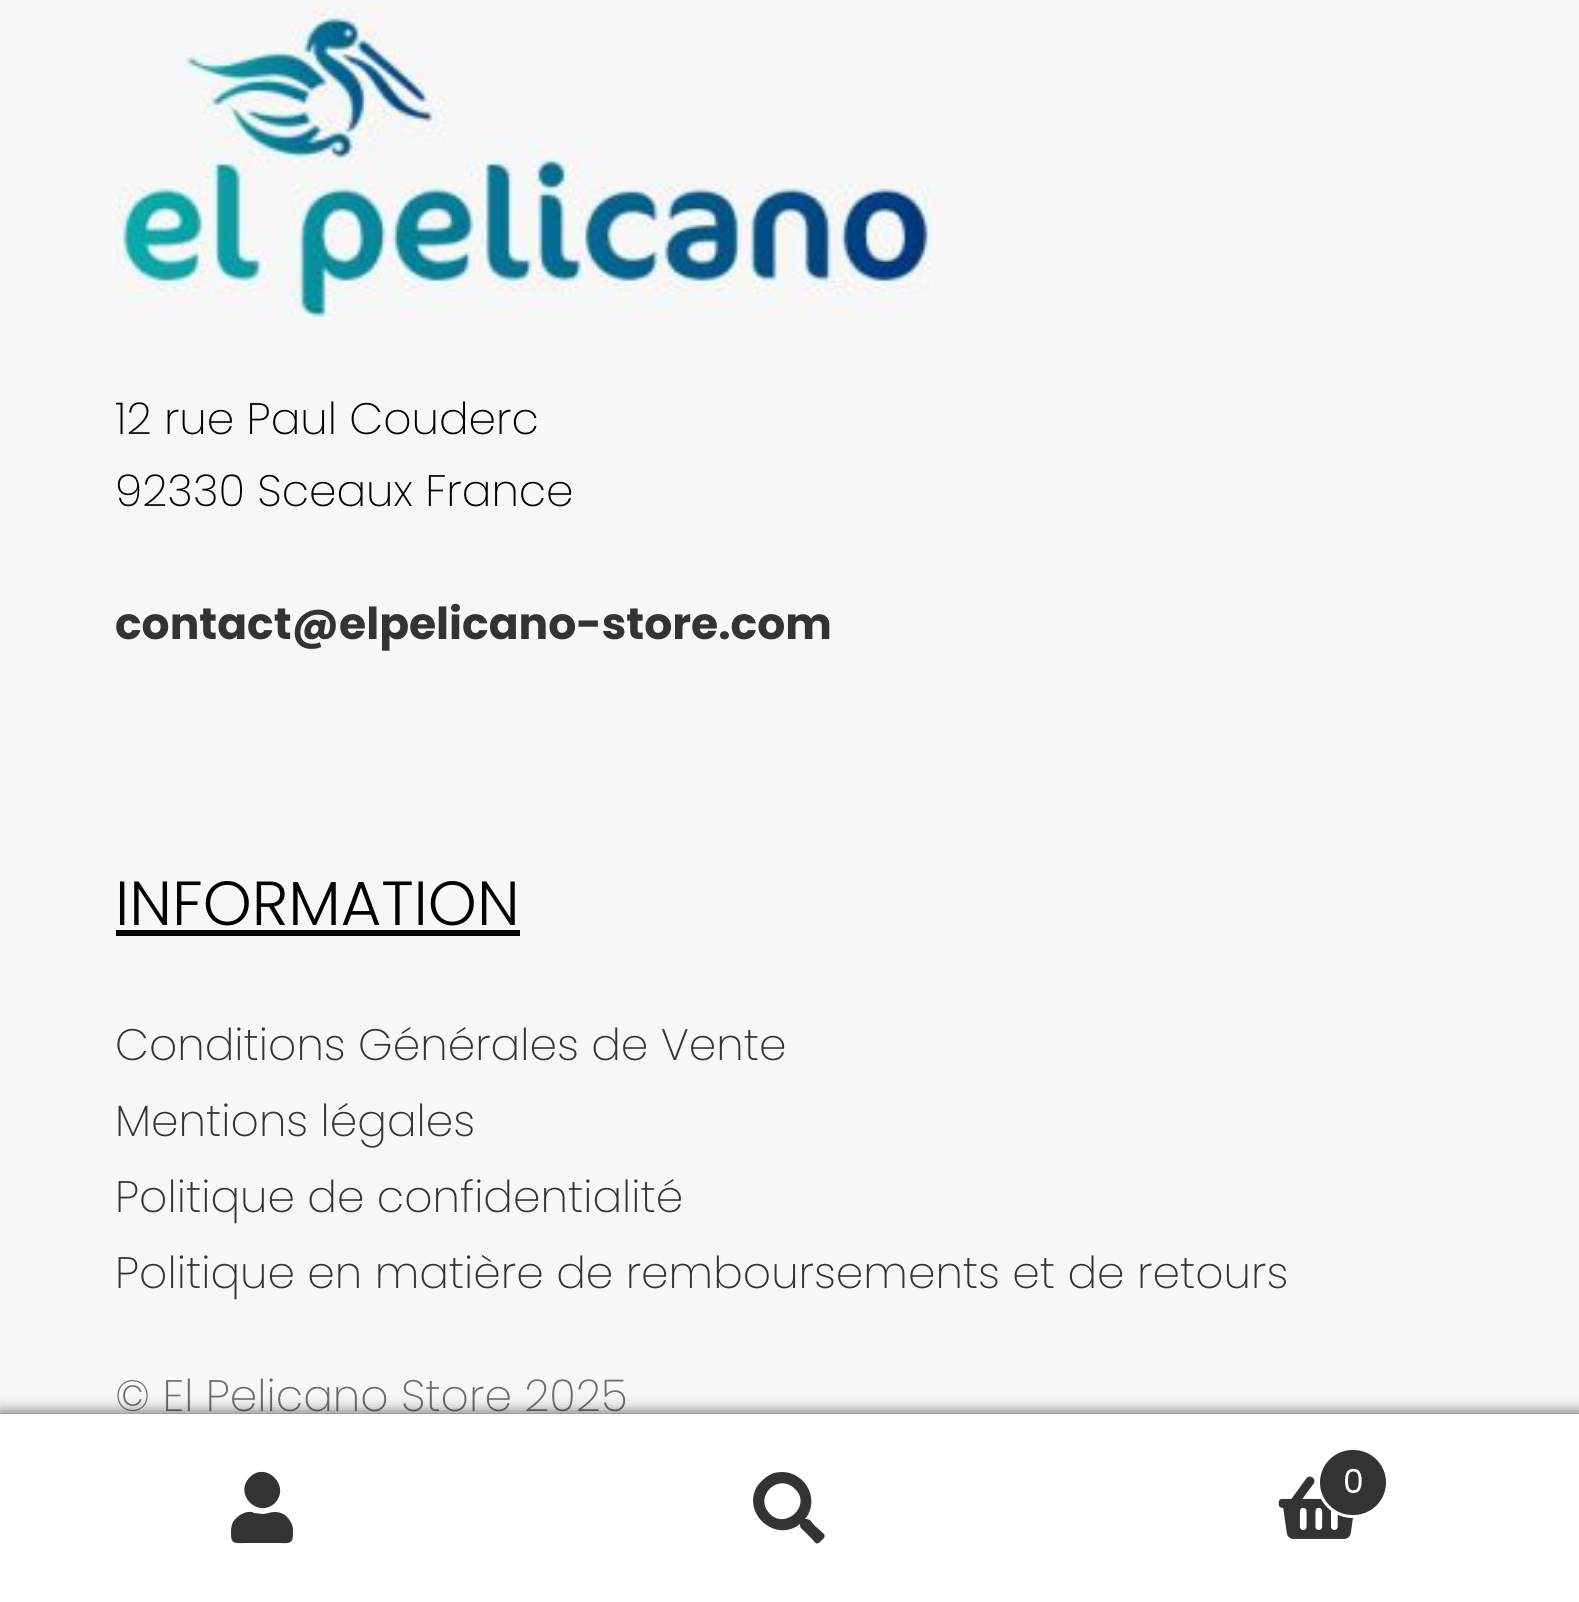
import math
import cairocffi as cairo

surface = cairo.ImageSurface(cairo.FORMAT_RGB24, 1579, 1602)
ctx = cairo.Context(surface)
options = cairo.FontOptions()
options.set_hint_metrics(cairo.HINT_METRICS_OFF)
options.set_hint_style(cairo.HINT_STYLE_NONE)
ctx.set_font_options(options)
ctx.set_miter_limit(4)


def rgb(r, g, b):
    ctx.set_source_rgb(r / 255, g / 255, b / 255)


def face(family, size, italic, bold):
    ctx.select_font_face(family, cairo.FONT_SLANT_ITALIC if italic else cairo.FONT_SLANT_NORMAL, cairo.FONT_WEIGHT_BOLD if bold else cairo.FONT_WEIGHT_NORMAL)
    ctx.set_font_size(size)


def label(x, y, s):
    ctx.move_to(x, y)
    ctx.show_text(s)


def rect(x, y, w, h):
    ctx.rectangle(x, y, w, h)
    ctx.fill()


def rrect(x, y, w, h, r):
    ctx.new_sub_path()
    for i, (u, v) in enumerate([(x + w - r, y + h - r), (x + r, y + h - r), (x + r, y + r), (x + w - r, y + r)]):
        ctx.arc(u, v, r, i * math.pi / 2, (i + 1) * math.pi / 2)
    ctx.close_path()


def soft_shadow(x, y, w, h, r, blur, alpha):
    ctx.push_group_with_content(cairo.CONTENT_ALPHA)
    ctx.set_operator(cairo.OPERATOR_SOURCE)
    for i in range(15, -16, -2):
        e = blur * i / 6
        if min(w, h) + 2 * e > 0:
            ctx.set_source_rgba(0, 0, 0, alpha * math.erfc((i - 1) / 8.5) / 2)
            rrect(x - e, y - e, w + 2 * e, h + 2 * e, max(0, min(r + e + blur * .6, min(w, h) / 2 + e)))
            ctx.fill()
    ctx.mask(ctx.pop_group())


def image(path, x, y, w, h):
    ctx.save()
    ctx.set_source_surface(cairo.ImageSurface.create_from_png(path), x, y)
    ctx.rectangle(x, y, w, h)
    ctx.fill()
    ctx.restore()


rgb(247, 247, 247)
ctx.paint()
image('image0.png', 116, 8, 824, 311)
face('Poppins ExtraLight', 44, 0, 0)
rgb(0, 0, 0)
label(115, 434, '12 rue Paul Couderc')
label(115, 506, '92330 Sceaux France')
face('Poppins', 44, 0, 1)
rgb(51, 51, 51)
label(115, 639, 'contact@elpelicano-store.com')
face('Poppins Light', 62.25, 0, 0)
rgb(0, 0, 0)
label(115, 925, 'INFORMATION')
rect(116, 930, 404, 6)
face('Poppins ExtraLight', 44, 0, 0)
rgb(51, 51, 51)
label(115, 1060, 'Conditions Générales de Vente')
label(115, 1136, 'Mentions légales')
label(115, 1212, 'Politique de confidentialité')
label(115, 1288, 'Politique en matière de remboursements et de retours')
rgb(109, 109, 109)
label(115, 1411, '© El Pelicano Store 2025')
rgb(0, 0, 0)
soft_shadow(0, 1414, 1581, 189, 0, 8, 0.7)
rgb(255, 255, 255)
rect(0, 1414, 1579, 2)
rect(0, 1416, 1579, 186)
rgb(51, 51, 51)
ctx.new_path()
ctx.move_to(275, 1503)
ctx.curve_to(258, 1519, 233, 1494, 250, 1477)
ctx.curve_to(266, 1461, 291, 1486, 275, 1503)
ctx.close_path()
ctx.move_to(275, 1512)
ctx.curve_to(281, 1512, 287, 1515, 290, 1521)
ctx.curve_to(293, 1525, 293, 1529, 293, 1534)
ctx.curve_to(293, 1545, 288, 1543, 278, 1543)
ctx.line_to(246, 1543)
ctx.curve_to(236, 1543, 231, 1545, 231, 1534)
ctx.curve_to(231, 1530, 231, 1526, 233, 1522)
ctx.curve_to(237, 1516, 244, 1511, 252, 1512)
ctx.line_to(254, 1513)
ctx.line_to(262, 1514)
ctx.curve_to(267, 1514, 270, 1512, 275, 1512)
ctx.close_path()
ctx.fill()
ctx.new_path()
ctx.move_to(824, 1534)
ctx.curve_to(826, 1537, 823, 1539, 821, 1541)
ctx.curve_to(817, 1545, 816, 1544, 813, 1540)
ctx.line_to(804, 1531)
ctx.curve_to(801, 1528, 800, 1528, 800, 1524)
ctx.curve_to(775, 1544, 740, 1512, 758, 1485)
ctx.curve_to(762, 1480, 768, 1475, 774, 1473)
ctx.curve_to(782, 1471, 791, 1472, 798, 1477)
ctx.curve_to(812, 1486, 816, 1506, 805, 1519)
ctx.curve_to(810, 1519, 810, 1520, 814, 1525)
ctx.close_path()
ctx.move_to(770, 1514)
ctx.curve_to(786, 1530, 812, 1505, 795, 1489)
ctx.curve_to(778, 1472, 753, 1497, 770, 1514)
ctx.close_path()
ctx.fill()
image('image1.png', 1278, 1476, 75, 63)
rrect(1318.5, 1448.5, 69, 68, 34)
ctx.fill_preserve()
rgb(255, 255, 255)
ctx.set_line_width(3)
ctx.stroke()
face('Poppins', 33, 0, 0)
label(1343, 1493, '0')
surface.write_to_png('render.png')
